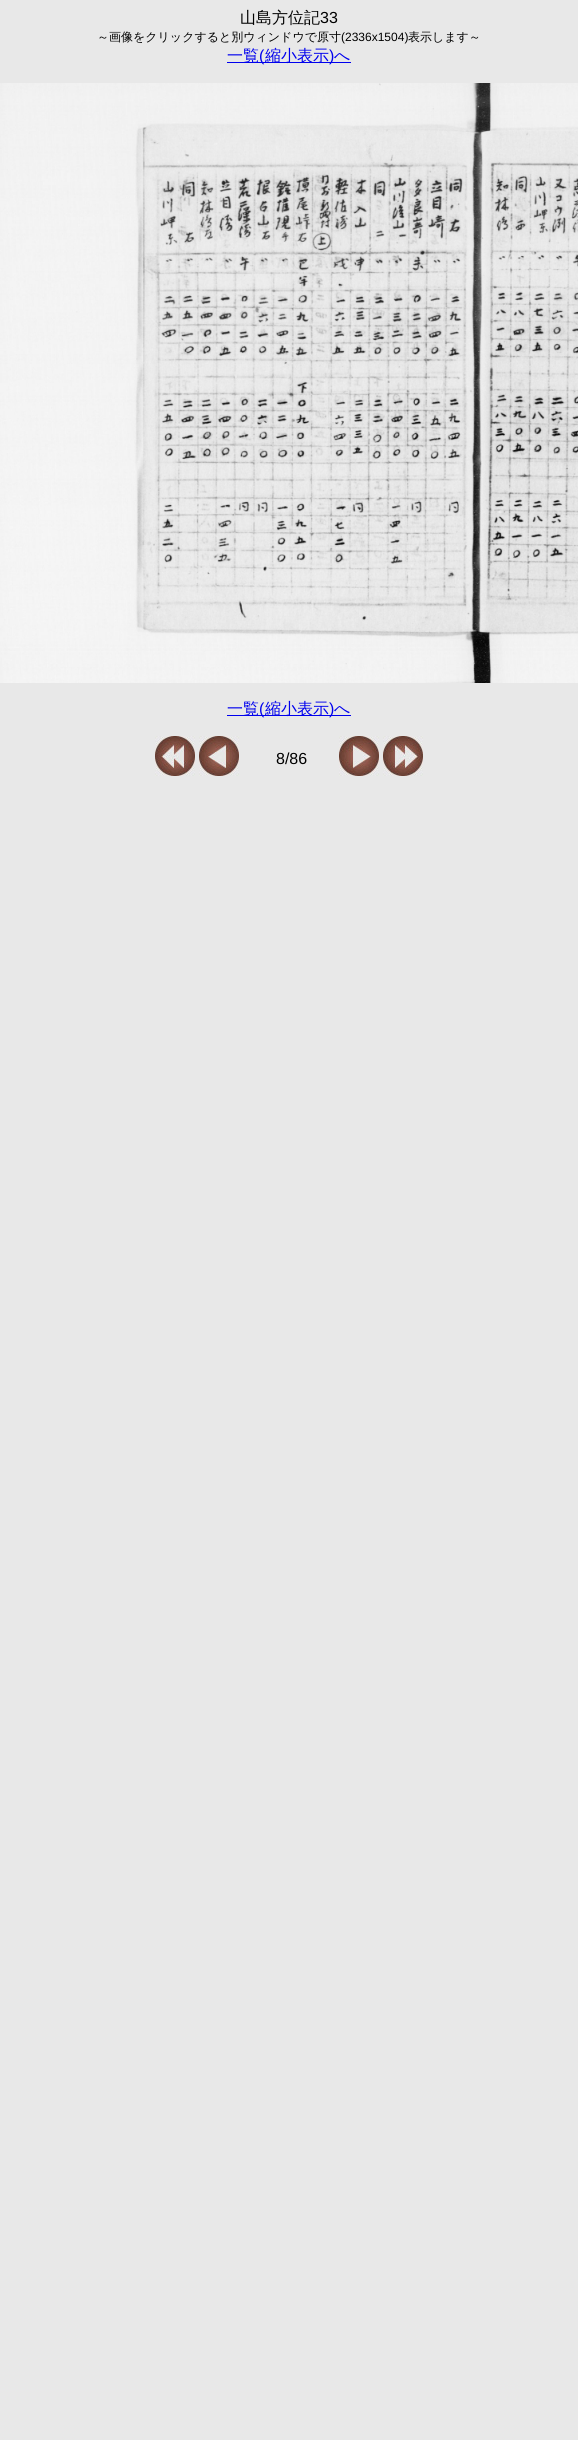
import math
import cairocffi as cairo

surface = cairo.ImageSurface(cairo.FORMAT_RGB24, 578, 2440)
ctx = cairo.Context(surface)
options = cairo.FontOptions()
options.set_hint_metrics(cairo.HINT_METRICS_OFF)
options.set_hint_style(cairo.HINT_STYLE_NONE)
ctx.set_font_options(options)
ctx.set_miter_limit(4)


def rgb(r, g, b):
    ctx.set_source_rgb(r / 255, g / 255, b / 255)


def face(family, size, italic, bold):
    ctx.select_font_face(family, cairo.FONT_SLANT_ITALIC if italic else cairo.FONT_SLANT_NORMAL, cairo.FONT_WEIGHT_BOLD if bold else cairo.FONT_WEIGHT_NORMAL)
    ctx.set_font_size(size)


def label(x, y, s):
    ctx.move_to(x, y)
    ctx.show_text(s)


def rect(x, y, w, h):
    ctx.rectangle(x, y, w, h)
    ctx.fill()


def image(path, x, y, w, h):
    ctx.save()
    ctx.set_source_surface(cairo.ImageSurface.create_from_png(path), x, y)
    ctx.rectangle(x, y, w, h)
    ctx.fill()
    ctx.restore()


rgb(232, 232, 232)
ctx.paint()
face('WenQuanYi Zen Hei Medium', 16, 0, 0)
rgb(0, 0, 0)
label(240, 23, '山島方位記')
face('Liberation Sans', 16, 0, 0)
label(320, 23, '33')
face('WenQuanYi Zen Hei Medium', 12, 0, 0)
label(97, 41, '～画像をクリックすると別ウィンドウで原寸')
face('Liberation Sans', 12, 0, 0)
label(341, 41, '(2336x1504)')
face('WenQuanYi Zen Hei Medium', 12, 0, 0)
label(408, 41, '表示します～')
rgb(0, 0, 238)
rect(227, 62, 124, 1)
face('WenQuanYi Zen Hei Medium', 16, 0, 0)
label(227, 61, '一覧')
face('Liberation Sans', 16, 0, 0)
label(259, 61, '(')
face('WenQuanYi Zen Hei Medium', 16, 0, 0)
label(265, 61, '縮小表示')
face('Liberation Sans', 16, 0, 0)
label(329, 61, ')')
face('WenQuanYi Zen Hei Medium', 16, 0, 0)
label(334, 61, 'へ')
image('image0.png', 0, 83, 578, 600)
rect(227, 715, 124, 1)
label(227, 714, '一覧')
face('Liberation Sans', 16, 0, 0)
label(259, 714, '(')
face('WenQuanYi Zen Hei Medium', 16, 0, 0)
label(265, 714, '縮小表示')
face('Liberation Sans', 16, 0, 0)
label(329, 714, ')')
face('WenQuanYi Zen Hei Medium', 16, 0, 0)
label(334, 714, 'へ')
image('image1.png', 155, 736, 40, 40)
image('image2.png', 199, 736, 40, 40)
face('Liberation Sans', 16, 0, 0)
rgb(0, 0, 0)
label(276, 764, '8/86')
image('image3.png', 339, 736, 40, 40)
image('image4.png', 383, 736, 40, 40)
surface.write_to_png('render.png')
